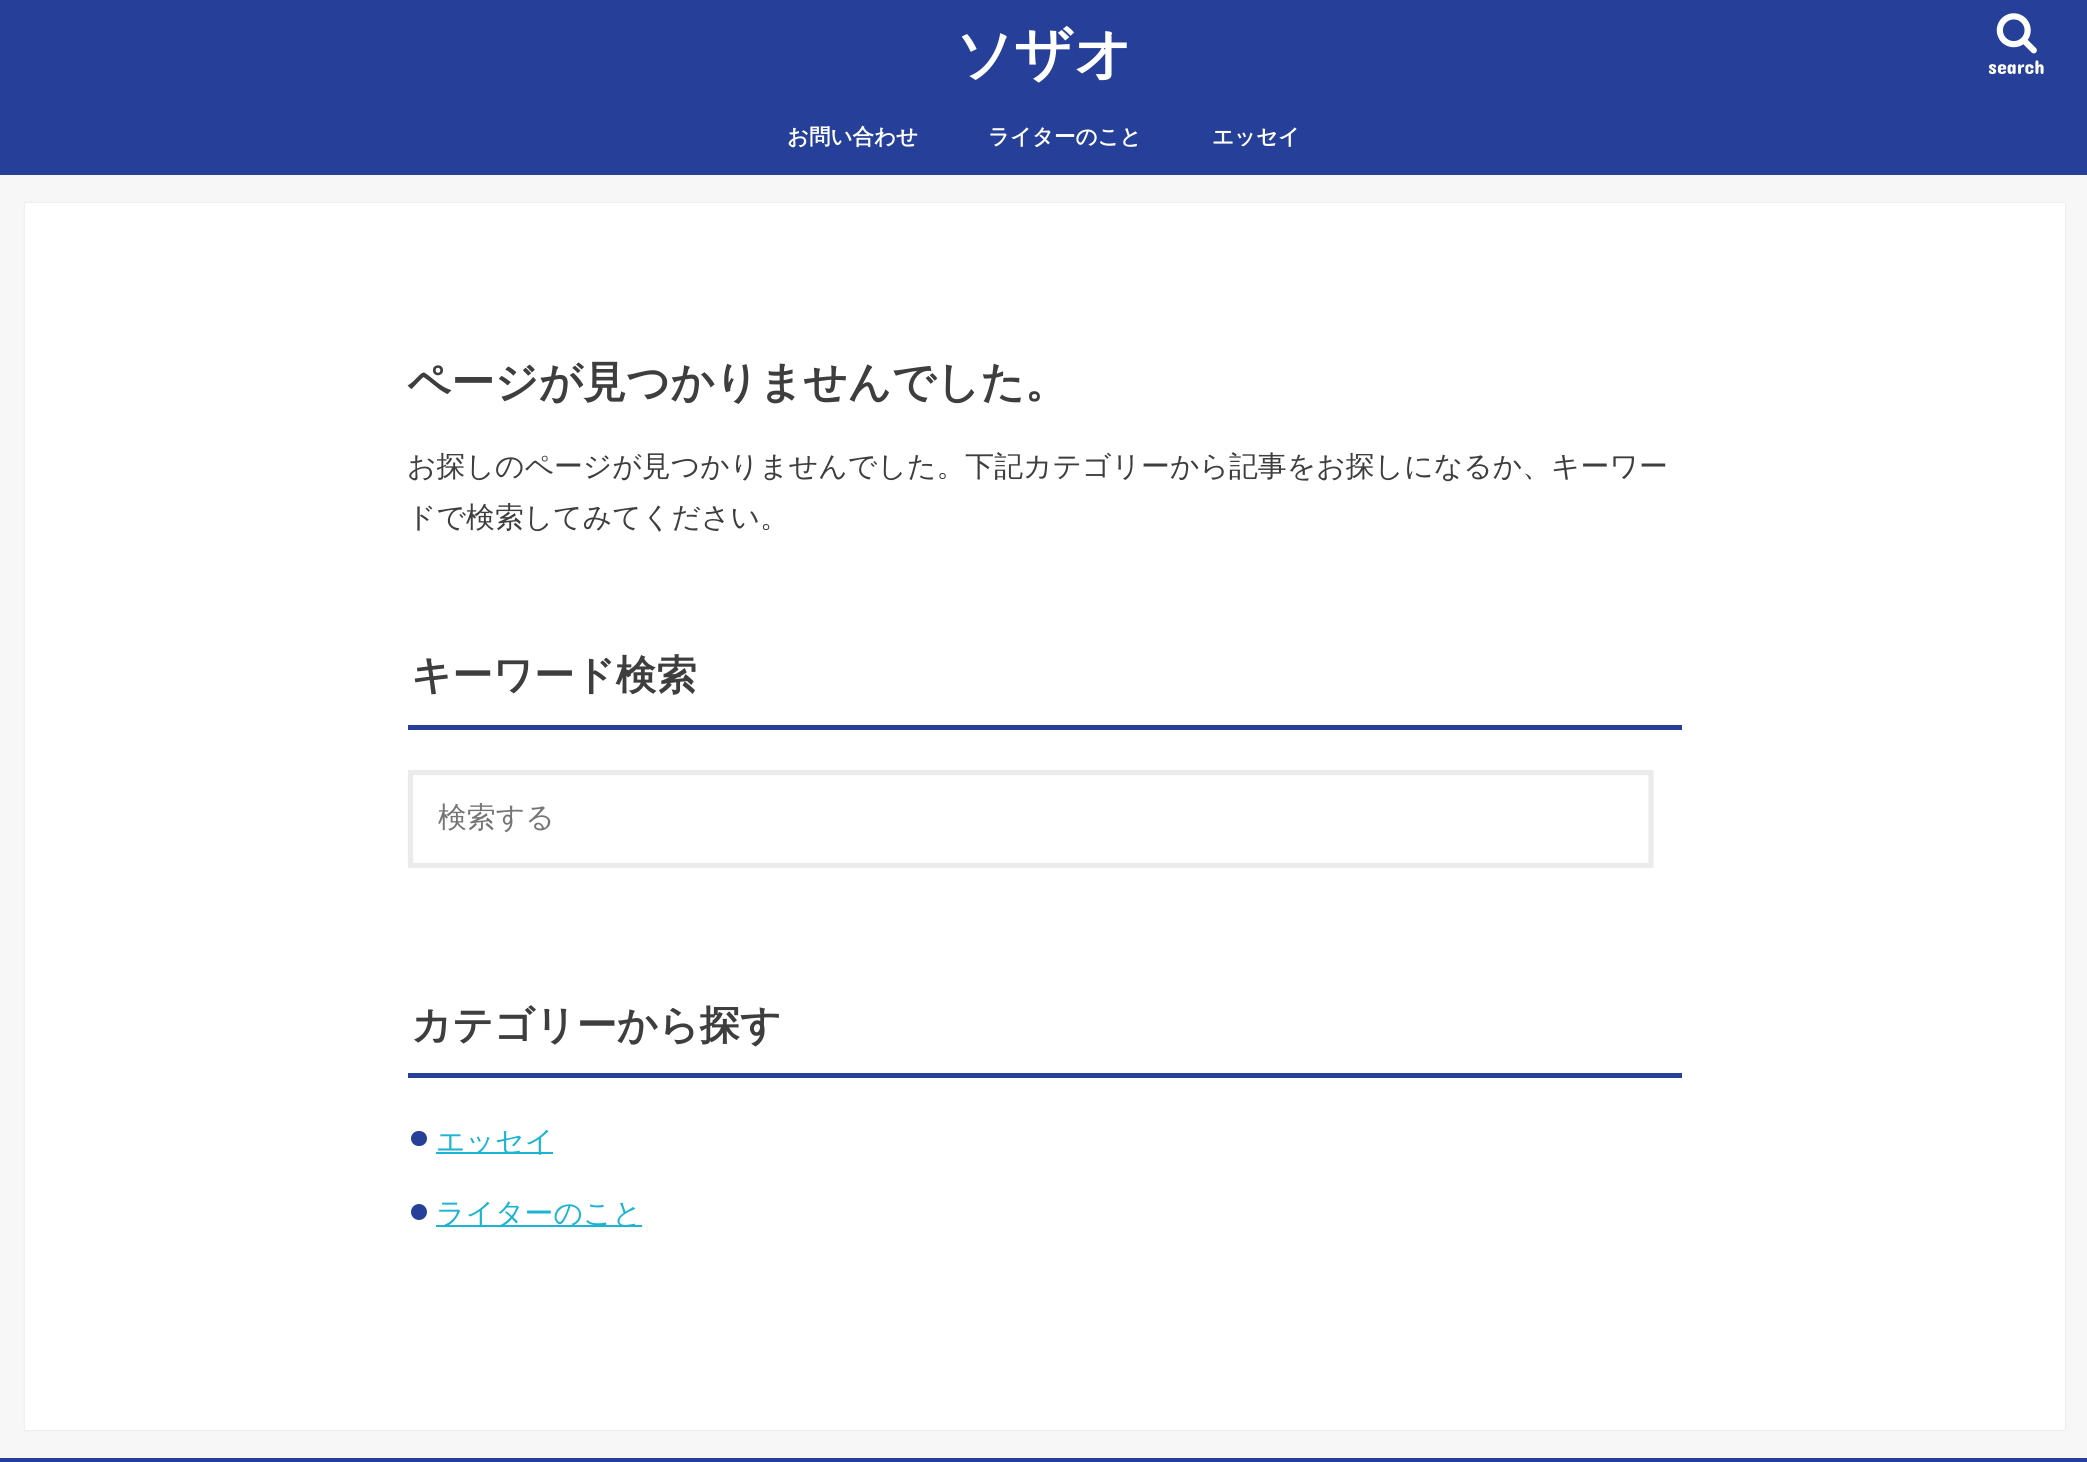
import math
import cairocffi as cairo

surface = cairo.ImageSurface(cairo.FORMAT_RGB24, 2087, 1462)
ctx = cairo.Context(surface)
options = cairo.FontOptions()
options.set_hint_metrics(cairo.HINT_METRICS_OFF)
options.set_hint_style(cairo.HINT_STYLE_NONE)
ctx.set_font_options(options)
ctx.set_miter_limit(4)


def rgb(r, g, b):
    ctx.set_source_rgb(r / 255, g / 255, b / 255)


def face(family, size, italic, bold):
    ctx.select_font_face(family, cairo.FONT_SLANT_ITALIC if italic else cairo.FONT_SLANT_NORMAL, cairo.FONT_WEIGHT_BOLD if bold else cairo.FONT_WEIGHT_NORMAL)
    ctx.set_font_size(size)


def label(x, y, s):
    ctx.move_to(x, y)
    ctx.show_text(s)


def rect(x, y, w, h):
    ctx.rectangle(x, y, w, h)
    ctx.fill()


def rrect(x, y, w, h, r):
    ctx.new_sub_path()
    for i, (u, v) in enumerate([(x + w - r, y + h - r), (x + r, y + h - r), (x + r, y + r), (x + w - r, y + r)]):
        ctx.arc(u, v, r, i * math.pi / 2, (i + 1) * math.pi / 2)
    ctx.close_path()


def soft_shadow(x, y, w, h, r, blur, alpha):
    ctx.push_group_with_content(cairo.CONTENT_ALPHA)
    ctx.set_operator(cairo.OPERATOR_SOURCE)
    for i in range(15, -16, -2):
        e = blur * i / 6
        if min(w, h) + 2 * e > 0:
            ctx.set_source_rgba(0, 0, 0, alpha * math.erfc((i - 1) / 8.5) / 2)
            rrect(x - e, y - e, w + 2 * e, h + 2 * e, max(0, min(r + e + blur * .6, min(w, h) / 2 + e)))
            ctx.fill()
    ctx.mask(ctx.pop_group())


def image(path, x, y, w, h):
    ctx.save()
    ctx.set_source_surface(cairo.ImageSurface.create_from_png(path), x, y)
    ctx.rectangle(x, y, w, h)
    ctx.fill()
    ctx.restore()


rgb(247, 247, 247)
ctx.paint()
rgb(38, 63, 153)
rect(0, 0, 2087, 175)
face('WenQuanYi Zen Hei', 58, 0, 1)
rgb(255, 255, 255)
label(955, 74, 'ソザオ')
image('image0.png', 1996, 13, 41, 41)
face('Concert One', 20, 0, 0)
label(1988, 74, 'search')
face('WenQuanYi Zen Hei', 21.5, 0, 1)
label(787, 144, 'お問い合わせ')
label(988, 144, 'ライターのこと')
label(1212, 144, 'エッセイ')
rgb(221, 221, 221)
soft_shadow(25, 203, 2040, 1227, 0, 1, 1)
rgb(255, 255, 255)
rect(25, 203, 2040, 1227)
face('WenQuanYi Zen Hei', 43.25, 0, 1)
rgb(62, 62, 62)
label(407, 397, 'ページが見つかりませんでした。')
face('WenQuanYi Zen Hei Medium', 28.85, 0, 0)
label(407, 476, 'お探しのページが見つかりませんでした。下記カテゴリーから記事をお探しになるか、キーワー')
label(407, 527, 'ドで検索してみてください。')
rgb(38, 63, 153)
rect(408, 725, 1274, 5)
face('WenQuanYi Zen Hei', 40.4, 0, 1)
rgb(62, 62, 62)
label(411, 689, 'キーワード検索')
ctx.new_path()
ctx.move_to(410.5, 772.5)
ctx.line_to(1651, 772.5)
ctx.line_to(1651, 865.5)
ctx.line_to(410.5, 865.5)
ctx.close_path()
rgb(235, 235, 235)
ctx.set_line_width(5.2)
ctx.stroke()
face('WenQuanYi Zen Hei Medium', 28.85, 0, 0)
rgb(117, 117, 117)
label(438, 827, '検索する')
rgb(38, 63, 153)
rect(408, 1073, 1274, 5)
face('WenQuanYi Zen Hei', 40.4, 0, 1)
rgb(62, 62, 62)
label(411, 1039, 'カテゴリーから探す')
rgb(38, 63, 153)
rrect(411, 1131, 16, 15, 7.5)
ctx.fill()
rgb(27, 180, 211)
rect(436, 1152, 117, 2)
face('WenQuanYi Zen Hei Medium', 28.85, 0, 0)
label(436, 1151, 'エッセイ')
rgb(38, 63, 153)
ctx.new_path()
ctx.arc(419, 1212, 8, 0, 2 * math.pi)
ctx.fill()
rgb(27, 180, 211)
rect(436, 1225, 206, 2)
label(436, 1223, 'ライターのこと')
rgb(38, 63, 153)
rect(0, 1458, 2087, 4)
surface.write_to_png('render.png')
